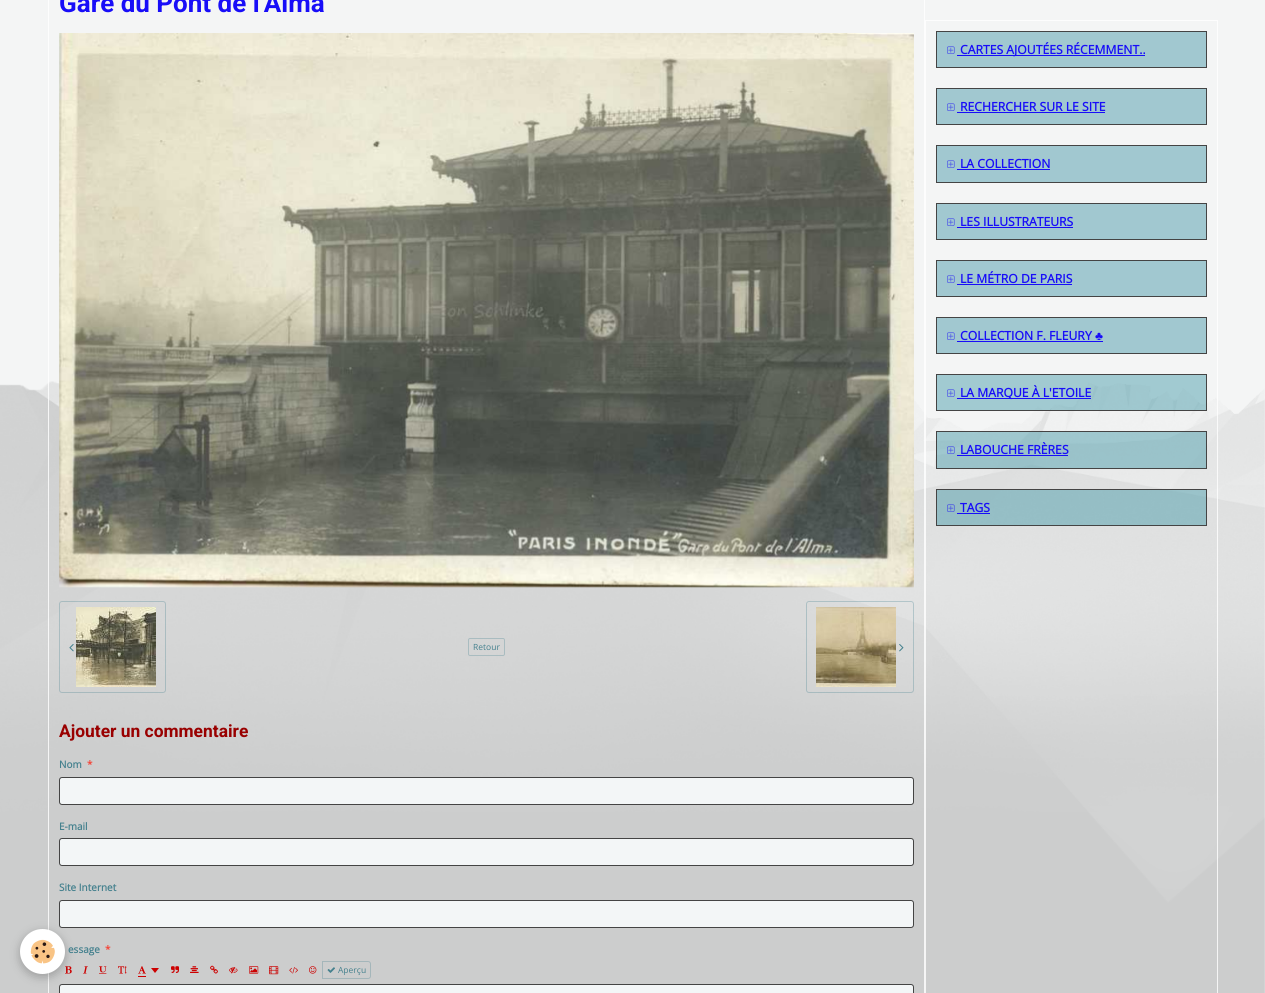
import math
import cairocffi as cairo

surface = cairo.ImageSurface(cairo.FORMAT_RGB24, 1265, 993)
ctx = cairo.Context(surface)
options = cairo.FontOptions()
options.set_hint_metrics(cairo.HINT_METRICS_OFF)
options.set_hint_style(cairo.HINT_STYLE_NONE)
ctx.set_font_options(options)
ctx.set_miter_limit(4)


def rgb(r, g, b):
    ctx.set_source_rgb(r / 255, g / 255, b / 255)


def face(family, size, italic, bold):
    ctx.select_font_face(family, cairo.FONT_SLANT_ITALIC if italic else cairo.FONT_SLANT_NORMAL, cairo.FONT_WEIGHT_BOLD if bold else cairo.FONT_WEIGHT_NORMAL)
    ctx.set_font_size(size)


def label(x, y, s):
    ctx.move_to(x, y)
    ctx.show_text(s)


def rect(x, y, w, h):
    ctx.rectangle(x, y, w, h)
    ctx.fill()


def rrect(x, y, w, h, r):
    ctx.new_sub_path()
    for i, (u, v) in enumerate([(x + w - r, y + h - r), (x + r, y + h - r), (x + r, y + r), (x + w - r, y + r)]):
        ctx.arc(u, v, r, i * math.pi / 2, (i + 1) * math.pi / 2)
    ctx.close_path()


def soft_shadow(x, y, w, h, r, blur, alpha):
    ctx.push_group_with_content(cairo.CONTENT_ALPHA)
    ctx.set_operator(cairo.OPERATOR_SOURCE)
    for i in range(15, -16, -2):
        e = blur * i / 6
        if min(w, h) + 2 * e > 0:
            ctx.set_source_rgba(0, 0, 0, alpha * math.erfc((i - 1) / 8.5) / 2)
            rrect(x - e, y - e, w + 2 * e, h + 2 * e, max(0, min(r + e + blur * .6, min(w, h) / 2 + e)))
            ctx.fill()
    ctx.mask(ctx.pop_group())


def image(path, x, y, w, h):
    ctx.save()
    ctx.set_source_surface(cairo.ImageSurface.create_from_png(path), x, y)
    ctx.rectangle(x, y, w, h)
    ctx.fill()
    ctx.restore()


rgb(244, 245, 245)
ctx.paint()
image('image0.png', 0, 381, 1265, 612)
ctx.rectangle(48.5, -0.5, 876, 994)
ctx.set_source_rgba(1, 1, 1, 0.8)
ctx.set_line_width(1)
ctx.stroke()
rgb(243, 246, 247)
rrect(59.5, 900.5, 854, 27, 2.5)
ctx.fill_preserve()
rgb(68, 68, 68)
ctx.stroke()
image('image7.png', 65, 966, 7, 8)
rgb(243, 246, 247)
rrect(59.5, 984.5, 854, 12, 2.5)
ctx.fill_preserve()
rgb(68, 68, 68)
ctx.stroke()
rgb(0, 0, 0)
soft_shadow(20, 932, 45, 45, 22.5, 5, 0.24)
rgb(255, 255, 255)
ctx.arc(42.5, 951.5, 22.5, 0, 2 * math.pi)
ctx.fill()
image('image1.png', 30, 939, 25, 25)
face('Roboto', 26, 0, 1)
rgb(24, 13, 248)
label(59, 12, 'Gare du Pont de l\'Alma')
image('image2.png', 59, 33, 855, 555)
image('image3.png', 69, 644, 5, 8)
image('image4.png', 76, 607, 80, 80)
rrect(59.5, 601.5, 106, 91, 2.5)
ctx.set_source_rgba(0.271, 0.506, 0.557, 0.3)
ctx.stroke()
rrect(468.5, 638.5, 36, 17, 1.5)
rgb(169, 188, 192)
ctx.stroke()
face('Open Sans', 8.5, 0, 0)
rgb(69, 129, 142)
label(473, 650, 'Retour')
image('image5.png', 816, 607, 80, 80)
image('image6.png', 899, 644, 5, 8)
rrect(806.5, 601.5, 107, 91, 2.5)
ctx.set_source_rgba(0.271, 0.506, 0.557, 0.3)
ctx.stroke()
face('Roboto', 17.4, 0, 1)
rgb(153, 0, 0)
label(59, 737, 'Ajouter un commentaire')
face('Open Sans', 10, 0, 1)
rgb(69, 129, 142)
label(59, 768, 'Nom')
rgb(244, 67, 54)
label(87, 768, '*')
rgb(243, 246, 247)
rrect(59.5, 777.5, 854, 27, 2.5)
ctx.fill_preserve()
rgb(68, 68, 68)
ctx.stroke()
rgb(69, 129, 142)
label(59, 830, 'E-mail')
rgb(243, 246, 247)
rrect(59.5, 838.5, 854, 27, 2.5)
ctx.fill_preserve()
rgb(68, 68, 68)
ctx.stroke()
rgb(69, 129, 142)
label(59, 891, 'Site Internet')
label(68, 953, 'essage')
rgb(244, 67, 54)
label(105, 953, '*')
image('image8.png', 83, 966, 5, 8)
image('image9.png', 99, 966, 8, 8)
image('image10.png', 118, 966, 9, 8)
image('image11.png', 138, 966, 8, 8)
rgb(204, 0, 0)
rect(138, 976, 8, 1)
ctx.new_path()
ctx.move_to(151, 968)
ctx.line_to(159, 968)
ctx.line_to(155, 973)
ctx.close_path()
ctx.fill()
image('image12.png', 171, 966, 8, 7)
image('image13.png', 190, 966, 9, 7)
image('image14.png', 210, 965, 8, 9)
image('image15.png', 229, 967, 9, 7)
image('image16.png', 249, 966, 10, 8)
image('image17.png', 269, 966, 10, 9)
image('image18.png', 289, 967, 9, 7)
image('image19.png', 309, 966, 8, 8)
image('image20.png', 327, 967, 8, 6)
ctx.new_path()
ctx.move_to(322.5, 961.5)
ctx.line_to(368, 961.5)
ctx.curve_to(369.5, 961.5, 370.5, 962.5, 370.5, 964)
ctx.line_to(370.5, 976)
ctx.curve_to(370.5, 977.5, 369.5, 978.5, 368, 978.5)
ctx.line_to(322.5, 978.5)
ctx.close_path()
rgb(164, 182, 186)
ctx.stroke()
face('Open Sans', 8.5, 0, 0)
rgb(69, 129, 142)
label(338, 973, 'Aperçu')
ctx.rectangle(925.5, 20.5, 292, 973)
ctx.set_source_rgba(1, 1, 1, 0.8)
ctx.stroke()
rgb(161, 200, 208)
ctx.rectangle(936.5, 31.5, 270, 36)
ctx.fill_preserve()
rgb(68, 68, 68)
ctx.stroke()
image('image21.png', 947, 46, 8, 8)
rgb(24, 13, 248)
rect(957, 55, 188, 1)
face('Open Sans', 12.2, 0, 1)
label(960, 54, 'CARTES AJOUTÉES RÉCEMMENT..')
rgb(161, 200, 208)
ctx.rectangle(936.5, 88.5, 270, 36)
ctx.fill_preserve()
rgb(68, 68, 68)
ctx.stroke()
image('image21.png', 947, 103, 8, 8)
rgb(24, 13, 248)
label(960, 111, 'RECHERCHER SUR LE SITE')
rect(957, 112, 148, 1)
rgb(161, 200, 208)
ctx.rectangle(936.5, 145.5, 270, 37)
ctx.fill_preserve()
rgb(68, 68, 68)
ctx.stroke()
image('image21.png', 947, 160, 8, 8)
rgb(24, 13, 248)
label(960, 168, 'LA COLLECTION')
rect(957, 169, 93, 1)
rgb(161, 200, 208)
ctx.rectangle(936.5, 203.5, 270, 36)
ctx.fill_preserve()
rgb(68, 68, 68)
ctx.stroke()
image('image21.png', 947, 218, 8, 8)
rgb(24, 13, 248)
label(960, 226, 'LES ILLUSTRATEURS')
rect(957, 227, 116, 1)
rgb(161, 200, 208)
ctx.rectangle(936.5, 260.5, 270, 36)
ctx.fill_preserve()
rgb(68, 68, 68)
ctx.stroke()
image('image21.png', 947, 275, 8, 8)
rgb(24, 13, 248)
label(960, 283, 'LE MÉTRO DE PARIS')
rect(957, 284, 115, 1)
rgb(161, 200, 208)
ctx.rectangle(936.5, 317.5, 270, 36)
ctx.fill_preserve()
rgb(68, 68, 68)
ctx.stroke()
image('image21.png', 947, 332, 8, 8)
rgb(24, 13, 248)
label(960, 340, 'COLLECTION F. FLEURY')
face('Liberation Serif', 12.2, 0, 1)
label(1095, 340, '♣')
rect(957, 341, 146, 1)
ctx.set_source_rgba(0.243, 0.584, 0.647, 0.45)
ctx.rectangle(936.5, 374.5, 270, 36)
ctx.fill_preserve()
rgb(68, 68, 68)
ctx.stroke()
image('image22.png', 947, 389, 8, 8)
rgb(24, 13, 248)
rect(957, 398, 134, 1)
face('Open Sans', 12.2, 0, 1)
label(960, 397, 'LA MARQUE À L\'ETOILE')
ctx.set_source_rgba(0.243, 0.584, 0.647, 0.45)
ctx.rectangle(936.5, 431.5, 270, 37)
ctx.fill_preserve()
rgb(68, 68, 68)
ctx.stroke()
image('image23.png', 947, 446, 8, 8)
rgb(24, 13, 248)
label(960, 454, 'LABOUCHE FRÈRES')
rect(957, 455, 111, 1)
ctx.set_source_rgba(0.243, 0.584, 0.647, 0.45)
ctx.rectangle(936.5, 489.5, 270, 36)
ctx.fill_preserve()
rgb(68, 68, 68)
ctx.stroke()
image('image24.png', 947, 504, 8, 8)
rgb(24, 13, 248)
label(960, 512, 'TAGS')
rect(957, 513, 33, 1)
surface.write_to_png('render.png')
